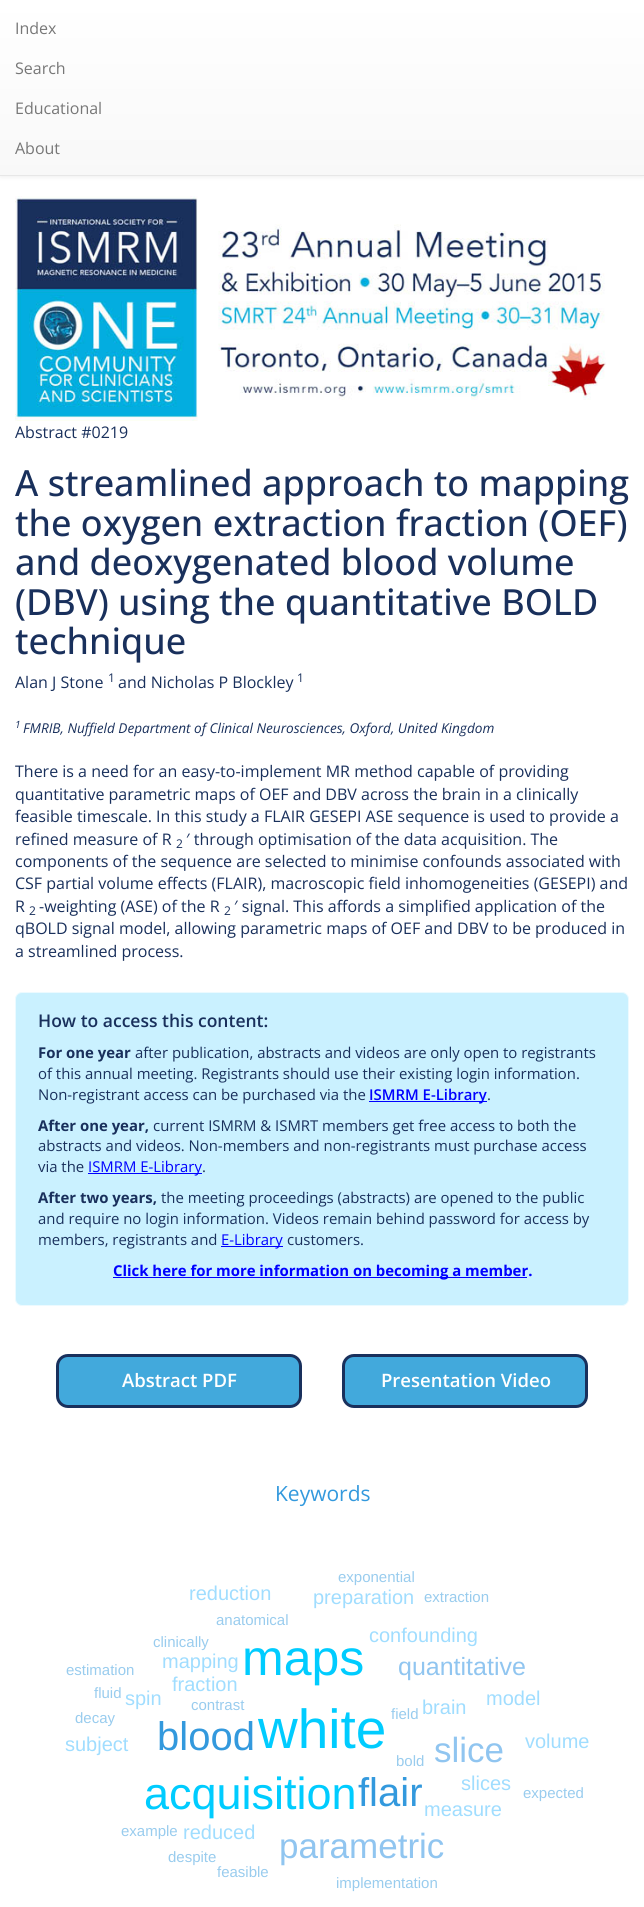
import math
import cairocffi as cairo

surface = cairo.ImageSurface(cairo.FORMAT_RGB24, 644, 1907)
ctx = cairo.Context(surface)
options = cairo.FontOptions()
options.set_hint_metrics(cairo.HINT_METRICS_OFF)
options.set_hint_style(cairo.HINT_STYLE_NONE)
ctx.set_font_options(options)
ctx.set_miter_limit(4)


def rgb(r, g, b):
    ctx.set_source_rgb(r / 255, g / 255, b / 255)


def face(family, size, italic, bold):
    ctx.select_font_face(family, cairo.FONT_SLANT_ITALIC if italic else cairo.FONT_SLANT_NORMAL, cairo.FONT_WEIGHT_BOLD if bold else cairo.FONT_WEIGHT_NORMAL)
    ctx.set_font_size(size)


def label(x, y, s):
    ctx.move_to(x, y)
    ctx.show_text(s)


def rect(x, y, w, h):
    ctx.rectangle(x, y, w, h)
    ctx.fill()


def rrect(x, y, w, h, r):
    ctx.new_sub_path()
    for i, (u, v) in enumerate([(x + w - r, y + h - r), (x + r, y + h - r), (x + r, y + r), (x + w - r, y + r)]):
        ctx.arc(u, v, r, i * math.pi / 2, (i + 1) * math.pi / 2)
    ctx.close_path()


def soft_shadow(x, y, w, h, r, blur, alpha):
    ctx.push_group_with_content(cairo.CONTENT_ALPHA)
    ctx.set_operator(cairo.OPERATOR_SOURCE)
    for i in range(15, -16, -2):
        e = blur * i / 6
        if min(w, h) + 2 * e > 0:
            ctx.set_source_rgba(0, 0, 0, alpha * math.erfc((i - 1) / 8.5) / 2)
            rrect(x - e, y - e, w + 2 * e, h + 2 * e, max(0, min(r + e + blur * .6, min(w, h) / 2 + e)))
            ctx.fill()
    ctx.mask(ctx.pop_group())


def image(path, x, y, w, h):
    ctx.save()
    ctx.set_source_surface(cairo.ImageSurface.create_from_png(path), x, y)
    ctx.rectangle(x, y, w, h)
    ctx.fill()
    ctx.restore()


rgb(255, 255, 255)
ctx.paint()
rgb(0, 0, 0)
soft_shadow(0, 1, 644, 176, 0, 2.5, 0.07)
gradient = cairo.LinearGradient(322, 0, 322, 175)
gradient.add_color_stop_rgba(0, 1, 1, 1, 1)
gradient.add_color_stop_rgba(1, 0.973, 0.973, 0.973, 1)
ctx.set_source(gradient)
rect(0, 0, 644, 175)
rgb(231, 231, 231)
rect(0, 175, 644, 1)
face('Open Sans', 16, 0, 0)
rgb(119, 119, 119)
label(15, 34, 'Index')
label(15, 74, 'Search')
label(15, 114, 'Educational')
label(15, 154, 'About')
image('image0.png', 15, 196, 591, 225)
rgb(25, 48, 92)
label(15, 438, 'Abstract #0219')
face('Open Sans Medium', 36, 0, 0)
label(15, 496, 'A streamlined approach to mapping')
label(15, 536, 'the oxygen extraction fraction (OEF)')
label(15, 575, 'and deoxygenated blood volume')
label(15, 615, '(DBV) using the quantitative BOLD')
label(15, 654, 'technique')
face('Open Sans', 16, 0, 0)
label(15, 688, 'Alan J Stone')
face('Open Sans', 12, 0, 0)
label(108, 682, '1')
face('Open Sans', 16, 0, 0)
label(118, 688, 'and Nicholas P Blockley')
face('Open Sans', 12, 0, 0)
label(297, 682, '1')
face('Open Sans', 10, 1, 0)
label(15, 728, '1')
face('Open Sans', 13.6, 1, 0)
label(23, 733, 'FMRIB, Nuffield Department of Clinical Neurosciences, Oxford, United Kingdom')
face('Open Sans', 16, 0, 0)
label(15, 777, 'There is a need for an easy-to-implement MR method capable of providing')
label(15, 800, 'quantitative parametric maps of OEF and DBV across the brain in a clinically')
label(15, 822, 'feasible timescale. In this study a FLAIR GESEPI ASE sequence is used to provide a')
label(15, 845, 'refined measure of R')
face('Open Sans', 12, 0, 0)
label(176, 848, '2')
face('Open Sans', 16, 0, 0)
label(186, 845, '′ through optimisation of the data acquisition. The')
label(15, 867, 'components of the sequence are selected to minimise confounds associated with')
label(15, 889, 'CSF partial volume effects (FLAIR), macroscopic field inhomogeneities (GESEPI) and')
label(15, 912, 'R')
face('Open Sans', 12, 0, 0)
label(29, 915, '2')
face('Open Sans', 16, 0, 0)
label(39, 912, '-weighting (ASE) of the R')
face('Open Sans', 12, 0, 0)
label(224, 915, '2')
face('Open Sans', 16, 0, 0)
label(234, 912, '′ signal. This affords a simplified application of the')
label(15, 934, 'qBOLD signal model, allowing parametric maps of OEF and DBV to be produced in')
label(15, 957, 'a streamlined process.')
rgb(202, 241, 255)
rrect(15.5, 992.5, 613, 313, 6.5)
ctx.fill_preserve()
rgb(236, 250, 255)
ctx.set_line_width(1)
ctx.stroke()
face('Open Sans SemiBold', 17.5, 0, 0)
rgb(25, 48, 92)
label(38, 1027, 'How to access this content:')
face('Open Sans', 14.9, 0, 1)
label(38, 1058, 'For one year')
face('Open Sans', 14.9, 0, 0)
label(135, 1058, 'after publication, abstracts and videos are only open to registrants')
label(38, 1079, 'of this annual meeting. Registrants should use their existing login information.')
label(38, 1100, 'Non-registrant access can be purchased via the')
rgb(0, 0, 255)
rect(369, 1101, 118, 1)
face('Open Sans SemiBold', 14.9, 0, 0)
label(369, 1100, 'ISMRM E-Library')
face('Open Sans', 14.9, 0, 0)
rgb(25, 48, 92)
label(487, 1100, '.')
face('Open Sans', 14.9, 0, 1)
label(38, 1131, 'After one year,')
face('Open Sans', 14.9, 0, 0)
label(153, 1131, 'current ISMRM & ISMRT members get free access to both the')
label(38, 1151, 'abstracts and videos. Non-members and non-registrants must purchase access')
label(38, 1172, 'via the')
rgb(0, 0, 255)
rect(88, 1173, 114, 1)
label(88, 1172, 'ISMRM E-Library')
rgb(25, 48, 92)
label(202, 1172, '.')
face('Open Sans', 14.9, 0, 1)
label(38, 1203, 'After two years,')
face('Open Sans', 14.9, 0, 0)
label(161, 1203, 'the meeting proceedings (abstracts) are opened to the public')
label(38, 1224, 'and require no login information. Videos remain behind password for access by')
label(38, 1245, 'members, registrants and')
rgb(0, 0, 255)
rect(221, 1246, 62, 1)
label(221, 1245, 'E-Library')
rgb(25, 48, 92)
label(287, 1245, 'customers.')
rgb(0, 0, 255)
rect(113, 1277, 414, 1)
face('Open Sans', 14.9, 0, 1)
label(113, 1276, 'Click here for more information on becoming a member.')
rgb(66, 169, 220)
rrect(57.5, 1355.5, 243, 51, 10.5)
ctx.fill_preserve()
rgb(25, 48, 92)
ctx.set_line_width(3)
ctx.stroke()
face('Open Sans SemiBold', 18.5, 0, 0)
rgb(255, 255, 255)
label(122, 1387, 'Abstract PDF')
rgb(66, 169, 220)
rrect(343.5, 1355.5, 243, 51, 10.5)
ctx.fill_preserve()
rgb(25, 48, 92)
ctx.stroke()
rgb(255, 255, 255)
label(381, 1387, 'Presentation Video')
face('Open Sans', 21, 0, 0)
rgb(51, 153, 221)
label(275, 1501, 'Keywords')
face('Liberation Sans', 15, 0, 0)
rgb(153, 204, 238)
label(338, 1582, 'exponential')
face('Liberation Sans', 20, 0, 0)
rgb(160, 221, 255)
label(189, 1600, 'reduction')
label(313, 1604, 'preparation')
face('Liberation Sans', 15, 0, 0)
rgb(153, 204, 238)
label(424, 1602, 'extraction')
label(216, 1625, 'anatomical')
label(153, 1647, 'clinically')
face('Liberation Sans', 20, 0, 0)
rgb(160, 221, 255)
label(369, 1642, 'confounding')
face('Liberation Sans', 15, 0, 0)
rgb(153, 204, 238)
label(66, 1675, 'estimation')
face('Liberation Sans', 20, 0, 0)
rgb(160, 221, 255)
label(162, 1668, 'mapping')
face('Liberation Sans', 50, 0, 0)
rgb(0, 204, 255)
label(242, 1675, 'maps')
face('Liberation Sans', 25, 0, 0)
rgb(144, 197, 240)
label(398, 1675, 'quantitative')
face('Liberation Sans', 15, 0, 0)
rgb(153, 204, 238)
label(94, 1698, 'fluid')
face('Liberation Sans', 20, 0, 0)
rgb(160, 221, 255)
label(125, 1705, 'spin')
label(172, 1691, 'fraction')
label(422, 1714, 'brain')
label(486, 1705, 'model')
face('Liberation Sans', 15, 0, 0)
rgb(153, 204, 238)
label(191, 1710, 'contrast')
label(75, 1723, 'decay')
face('Liberation Sans', 55, 0, 0)
rgb(0, 204, 255)
label(258, 1748, 'white')
face('Liberation Sans', 15, 0, 0)
rgb(153, 204, 238)
label(391, 1719, 'field')
face('Liberation Sans', 20, 0, 0)
rgb(160, 221, 255)
label(65, 1751, 'subject')
face('Liberation Sans', 40, 0, 0)
rgb(51, 153, 221)
label(157, 1750, 'blood')
face('Liberation Sans', 15, 0, 0)
rgb(153, 204, 238)
label(396, 1766, 'bold')
face('Liberation Sans', 35, 0, 0)
rgb(144, 197, 240)
label(434, 1762, 'slice')
face('Liberation Sans', 20, 0, 0)
rgb(160, 221, 255)
label(525, 1748, 'volume')
face('Liberation Sans', 45, 0, 0)
rgb(0, 204, 255)
label(144, 1809, 'acquisition')
face('Liberation Sans', 40, 0, 0)
rgb(51, 153, 221)
label(358, 1806, 'flair')
face('Liberation Sans', 20, 0, 0)
rgb(160, 221, 255)
label(461, 1790, 'slices')
face('Liberation Sans', 15, 0, 0)
rgb(153, 204, 238)
label(523, 1798, 'expected')
face('Liberation Sans', 20, 0, 0)
rgb(160, 221, 255)
label(424, 1816, 'measure')
face('Liberation Sans', 15, 0, 0)
rgb(153, 204, 238)
label(121, 1836, 'example')
face('Liberation Sans', 20, 0, 0)
rgb(160, 221, 255)
label(183, 1839, 'reduced')
face('Liberation Sans', 35, 0, 0)
rgb(144, 197, 240)
label(279, 1858, 'parametric')
face('Liberation Sans', 15, 0, 0)
rgb(153, 204, 238)
label(168, 1862, 'despite')
label(217, 1877, 'feasible')
label(336, 1888, 'implementation')
surface.write_to_png('render.png')
